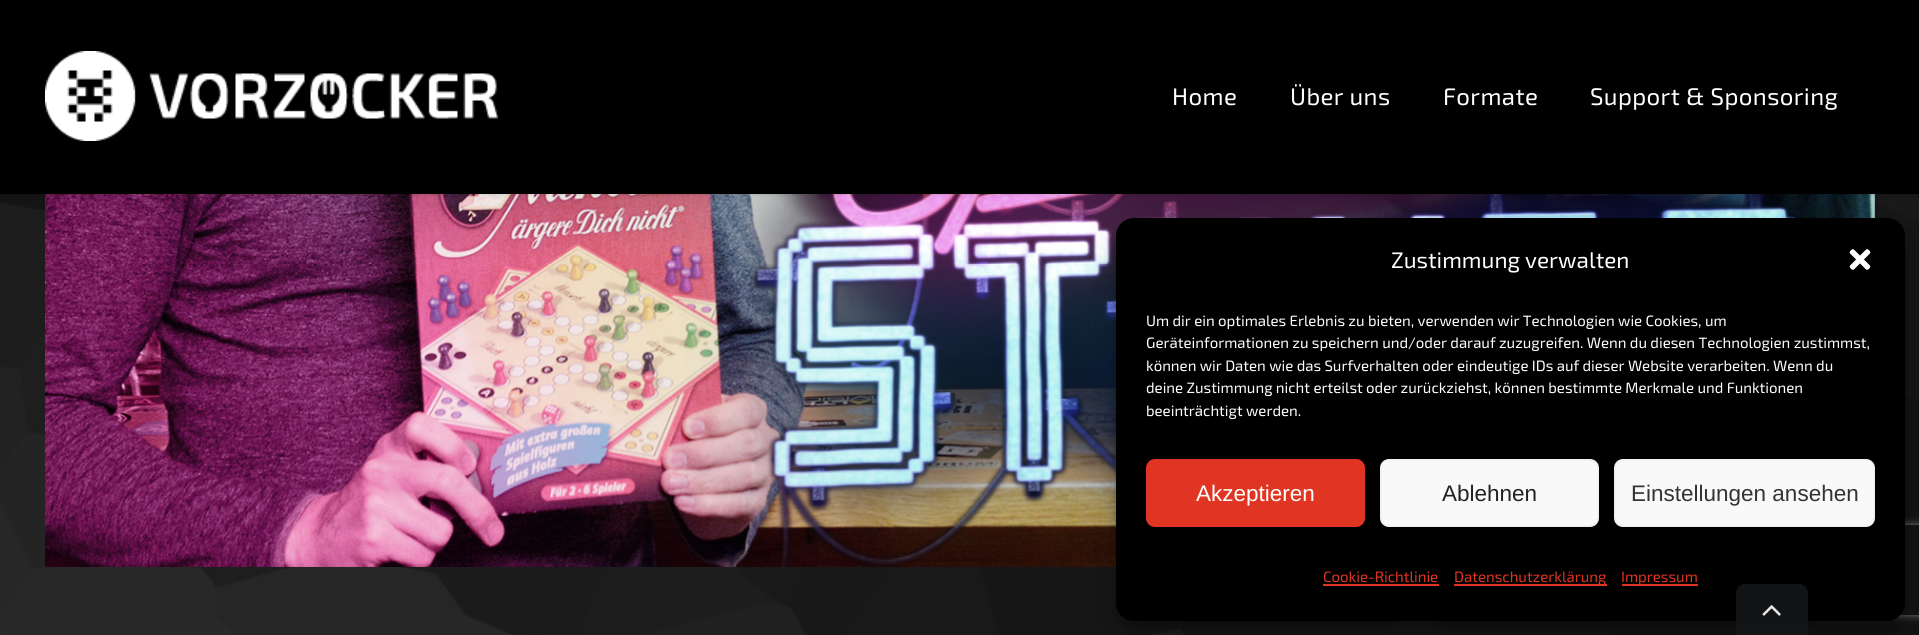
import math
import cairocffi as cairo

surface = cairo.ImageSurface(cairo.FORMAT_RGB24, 1919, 635)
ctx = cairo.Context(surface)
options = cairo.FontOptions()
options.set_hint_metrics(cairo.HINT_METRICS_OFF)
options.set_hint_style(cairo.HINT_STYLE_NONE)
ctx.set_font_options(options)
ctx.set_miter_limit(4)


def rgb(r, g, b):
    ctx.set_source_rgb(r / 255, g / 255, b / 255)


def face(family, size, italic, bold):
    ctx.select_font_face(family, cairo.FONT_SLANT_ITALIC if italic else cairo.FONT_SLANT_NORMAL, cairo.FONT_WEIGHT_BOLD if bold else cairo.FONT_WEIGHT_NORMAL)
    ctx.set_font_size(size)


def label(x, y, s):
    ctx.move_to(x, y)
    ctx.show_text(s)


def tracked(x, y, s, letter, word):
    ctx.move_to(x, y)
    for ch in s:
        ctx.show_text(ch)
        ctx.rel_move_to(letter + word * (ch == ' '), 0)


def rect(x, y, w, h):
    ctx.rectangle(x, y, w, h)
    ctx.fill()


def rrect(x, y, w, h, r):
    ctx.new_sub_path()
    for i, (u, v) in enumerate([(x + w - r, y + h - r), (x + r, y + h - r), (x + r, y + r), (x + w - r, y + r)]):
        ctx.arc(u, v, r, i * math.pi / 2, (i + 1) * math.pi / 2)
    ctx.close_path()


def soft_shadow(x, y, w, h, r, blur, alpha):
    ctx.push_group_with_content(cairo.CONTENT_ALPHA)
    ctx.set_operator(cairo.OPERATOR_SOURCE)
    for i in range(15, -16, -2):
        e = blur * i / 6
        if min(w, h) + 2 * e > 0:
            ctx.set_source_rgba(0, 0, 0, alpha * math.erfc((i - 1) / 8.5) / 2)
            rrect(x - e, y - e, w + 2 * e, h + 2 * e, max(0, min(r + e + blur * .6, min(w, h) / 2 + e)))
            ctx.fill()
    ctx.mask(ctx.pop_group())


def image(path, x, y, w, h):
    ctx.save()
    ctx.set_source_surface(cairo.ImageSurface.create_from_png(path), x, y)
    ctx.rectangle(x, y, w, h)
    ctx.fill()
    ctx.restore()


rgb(255, 255, 255)
ctx.paint()
image('image1.png', 0, 194, 1919, 441)
ctx.save()
ctx.set_fill_rule(cairo.FILL_RULE_EVEN_ODD)
ctx.new_path()
ctx.move_to(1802, 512)
ctx.line_to(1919, 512)
ctx.line_to(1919, 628)
ctx.line_to(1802, 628)
ctx.close_path()
ctx.move_to(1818, 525)
ctx.line_to(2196, 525)
ctx.curve_to(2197.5, 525, 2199, 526.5, 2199, 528)
ctx.line_to(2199, 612)
ctx.curve_to(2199, 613.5, 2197.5, 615, 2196, 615)
ctx.line_to(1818, 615)
ctx.curve_to(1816.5, 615, 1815, 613.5, 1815, 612)
ctx.line_to(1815, 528)
ctx.curve_to(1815, 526.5, 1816.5, 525, 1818, 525)
ctx.close_path()
ctx.clip()
rgb(128, 128, 128)
soft_shadow(1815, 525, 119, 90, 3, 4, 1)
ctx.restore()
image('image2.png', 45, 194, 1830, 373)
rgb(0, 0, 0)
soft_shadow(0, 2, 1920, 193, 0, 2, 0.12)
rgb(0, 0, 0)
rect(0, 0, 1919, 194)
image('image0.png', 45, 51, 453, 90)
face('Exo 2', 24, 0, 0)
rgb(255, 255, 255)
tracked(1172, 105, 'Home', 0.4, 0)
tracked(1290, 105, 'Über uns', 0.4, 0)
tracked(1443, 105, 'Formate', 0.4, 0)
tracked(1590, 105, 'Support & Sponsoring', 0.4, 0)
rgb(0, 0, 0)
soft_shadow(1116, 227, 789, 403, 18, 4.5, 0.23)
soft_shadow(1116, 233, 789, 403, 18, 15, 0.19)
rgb(0, 0, 0)
rrect(1116, 218, 789, 403, 18)
ctx.fill()
face('Exo 2', 22.5, 0, 0)
rgb(255, 255, 255)
label(1391, 268, 'Zustimmung verwalten')
image('image3.png', 1849, 249, 22, 21)
face('Exo 2', 15, 0, 0)
label(1146, 326, 'Um dir ein optimales Erlebnis zu bieten, verwenden wir Technologien wie Cookies, um')
label(1146, 348, 'Geräteinformationen zu speichern und/oder darauf zuzugreifen. Wenn du diesen Technologien zustimmst,')
label(1146, 371, 'können wir Daten wie das Surfverhalten oder eindeutige IDs auf dieser Website verarbeiten. Wenn du')
label(1146, 393, 'deine Zustimmung nicht erteilst oder zurückziehst, können bestimmte Merkmale und Funktionen')
label(1146, 416, 'beeinträchtigt werden.')
rgb(223, 53, 34)
rrect(1147, 460, 217, 66, 8)
ctx.fill_preserve()
ctx.stroke()
face('Liberation Sans', 22.5, 0, 0)
rgb(255, 255, 255)
label(1196, 501, 'Akzeptieren')
rgb(249, 249, 249)
rrect(1381, 460, 217, 66, 8)
ctx.fill_preserve()
rgb(242, 242, 242)
ctx.stroke()
rgb(34, 34, 34)
label(1442, 501, 'Ablehnen')
rgb(249, 249, 249)
rrect(1615, 460, 259, 66, 8)
ctx.fill_preserve()
rgb(242, 242, 242)
ctx.stroke()
rgb(51, 51, 51)
label(1631, 501, 'Einstellungen ansehen')
face('Exo 2', 15, 0, 0)
rgb(223, 53, 34)
label(1323, 582, 'Cookie-Richtlinie')
rect(1323, 584, 116, 2)
rect(1454, 584, 153, 2)
label(1454, 582, 'Datenschutzerklärung')
rect(1622, 584, 76, 2)
label(1621, 582, 'Impressum')
ctx.set_source_rgba(0.078, 0.086, 0.09, 0.9)
ctx.new_path()
ctx.move_to(1745, 584)
ctx.line_to(1799, 584)
ctx.curve_to(1804, 584, 1808, 588, 1808, 593)
ctx.line_to(1808, 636)
ctx.line_to(1736, 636)
ctx.line_to(1736, 593)
ctx.curve_to(1736, 588, 1740, 584, 1745, 584)
ctx.close_path()
ctx.fill()
image('image4.png', 1762, 605, 19, 11)
surface.write_to_png('render.png')
